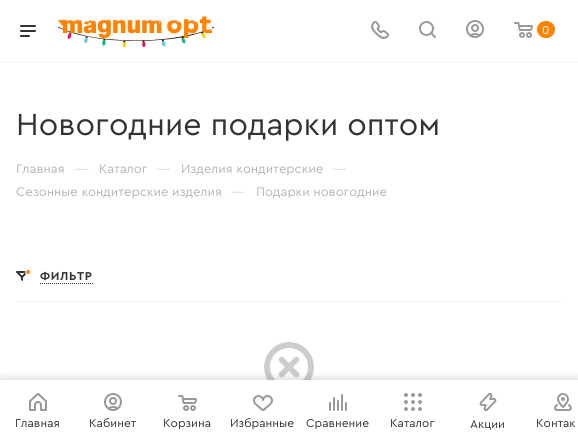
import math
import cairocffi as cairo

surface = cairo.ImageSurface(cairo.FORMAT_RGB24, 578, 442)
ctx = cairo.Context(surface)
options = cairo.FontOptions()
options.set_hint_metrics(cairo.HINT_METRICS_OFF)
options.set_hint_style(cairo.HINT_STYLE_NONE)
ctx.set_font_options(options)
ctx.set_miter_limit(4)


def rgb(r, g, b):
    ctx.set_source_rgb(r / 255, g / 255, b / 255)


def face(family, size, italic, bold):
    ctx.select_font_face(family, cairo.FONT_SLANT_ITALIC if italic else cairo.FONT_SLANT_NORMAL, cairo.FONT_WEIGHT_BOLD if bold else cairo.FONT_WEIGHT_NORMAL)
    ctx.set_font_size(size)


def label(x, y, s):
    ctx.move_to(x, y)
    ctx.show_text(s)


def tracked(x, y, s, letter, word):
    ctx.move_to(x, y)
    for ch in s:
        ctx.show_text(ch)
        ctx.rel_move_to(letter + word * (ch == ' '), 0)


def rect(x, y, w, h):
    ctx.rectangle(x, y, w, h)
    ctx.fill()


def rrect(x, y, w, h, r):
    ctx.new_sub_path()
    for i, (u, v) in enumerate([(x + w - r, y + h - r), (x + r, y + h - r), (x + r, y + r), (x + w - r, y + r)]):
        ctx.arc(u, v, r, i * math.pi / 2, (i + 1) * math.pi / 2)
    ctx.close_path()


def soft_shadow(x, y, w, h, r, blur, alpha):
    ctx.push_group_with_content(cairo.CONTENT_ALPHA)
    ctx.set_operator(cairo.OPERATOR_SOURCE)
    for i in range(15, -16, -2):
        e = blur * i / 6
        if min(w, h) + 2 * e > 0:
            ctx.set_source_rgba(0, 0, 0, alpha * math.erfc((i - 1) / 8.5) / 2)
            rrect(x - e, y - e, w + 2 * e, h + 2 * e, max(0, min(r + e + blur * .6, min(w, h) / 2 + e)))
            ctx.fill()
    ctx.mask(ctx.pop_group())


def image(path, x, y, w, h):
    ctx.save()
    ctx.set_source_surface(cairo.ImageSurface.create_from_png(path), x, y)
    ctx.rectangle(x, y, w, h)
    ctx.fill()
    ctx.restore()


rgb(255, 255, 255)
ctx.paint()
rgb(245, 245, 245)
rect(0, 62, 578, 1)
image('image0.png', 20, 25, 16, 12)
image('image1.png', 58, 16, 156, 32)
image('image2.png', 371, 21, 18, 18)
image('image3.png', 419, 21, 17, 17)
image('image4.png', 466, 20, 18, 18)
image('image5.png', 514, 22, 19, 16)
rgb(255, 130, 0)
rrect(537, 21, 18, 17, 8.5)
ctx.fill()
face('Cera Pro', 12, 0, 0)
rgb(255, 255, 255)
label(542, 34, '0')
face('Cera Pro', 32, 0, 0)
rgb(51, 51, 51)
label(16, 135, 'Новогодние подарки оптом')
face('Cera Pro', 13, 0, 0)
rgb(182, 181, 181)
label(16, 173, 'Главная')
face('Cera Pro', 15, 0, 0)
rgb(221, 221, 221)
label(74, 174, '—')
face('Cera Pro', 13, 0, 0)
rgb(182, 181, 181)
label(99, 173, 'Каталог')
face('Cera Pro', 15, 0, 0)
rgb(221, 221, 221)
label(156, 174, '—')
face('Cera Pro', 13, 0, 0)
rgb(182, 181, 181)
label(181, 173, 'Изделия кондитерские')
face('Cera Pro', 15, 0, 0)
rgb(221, 221, 221)
label(332, 174, '—')
face('Cera Pro', 13, 0, 0)
rgb(182, 181, 181)
label(16, 196, 'Сезонные кондитерские изделия')
face('Cera Pro', 15, 0, 0)
rgb(221, 221, 221)
label(231, 197, '—')
face('Cera Pro', 13, 0, 0)
rgb(182, 181, 181)
label(256, 196, 'Подарки новогодние')
image('image6.png', 16, 271, 11, 10)
rgb(255, 130, 0)
ctx.arc(28, 272, 2.5, 0, 2 * math.pi)
ctx.fill_preserve()
rgb(255, 255, 255)
ctx.set_line_width(1)
ctx.stroke()
face('Cera Pro', 12, 0, 1)
rgb(51, 51, 51)
tracked(40, 280, 'ФИЛЬТР', 0.75, 0)
ctx.new_path()
ctx.move_to(40, 283.5)
ctx.line_to(93, 283.5)
ctx.set_dash([1, 1])
ctx.stroke()
rgb(238, 238, 238)
rect(16, 301, 546, 1)
image('image7.png', 264, 342, 50, 38)
rgb(0, 0, 0)
soft_shadow(0, 378, 578, 62, 0, 4, 0.15)
rgb(255, 255, 255)
rect(0, 380, 578, 62)
image('image8.png', 29, 393, 18, 18)
face('Cera Pro', 12, 0, 0)
rgb(51, 51, 51)
label(15, 427, 'Главная')
image('image9.png', 104, 393, 18, 18)
label(89, 427, 'Кабинет')
image('image10.png', 178, 395, 19, 16)
label(163, 427, 'Корзина')
image('image11.png', 253, 395, 20, 16)
label(230, 427, 'Избранные')
image('image12.png', 329, 394, 18, 17)
label(306, 427, 'Сравнение')
image('image13.png', 404, 393, 18, 18)
label(390, 427, 'Каталог')
image('image14.png', 479, 392, 18, 20)
label(470, 428, 'Акции')
image('image15.png', 554, 393, 18, 18)
label(536, 427, 'Контак')
surface.write_to_png('render.png')
